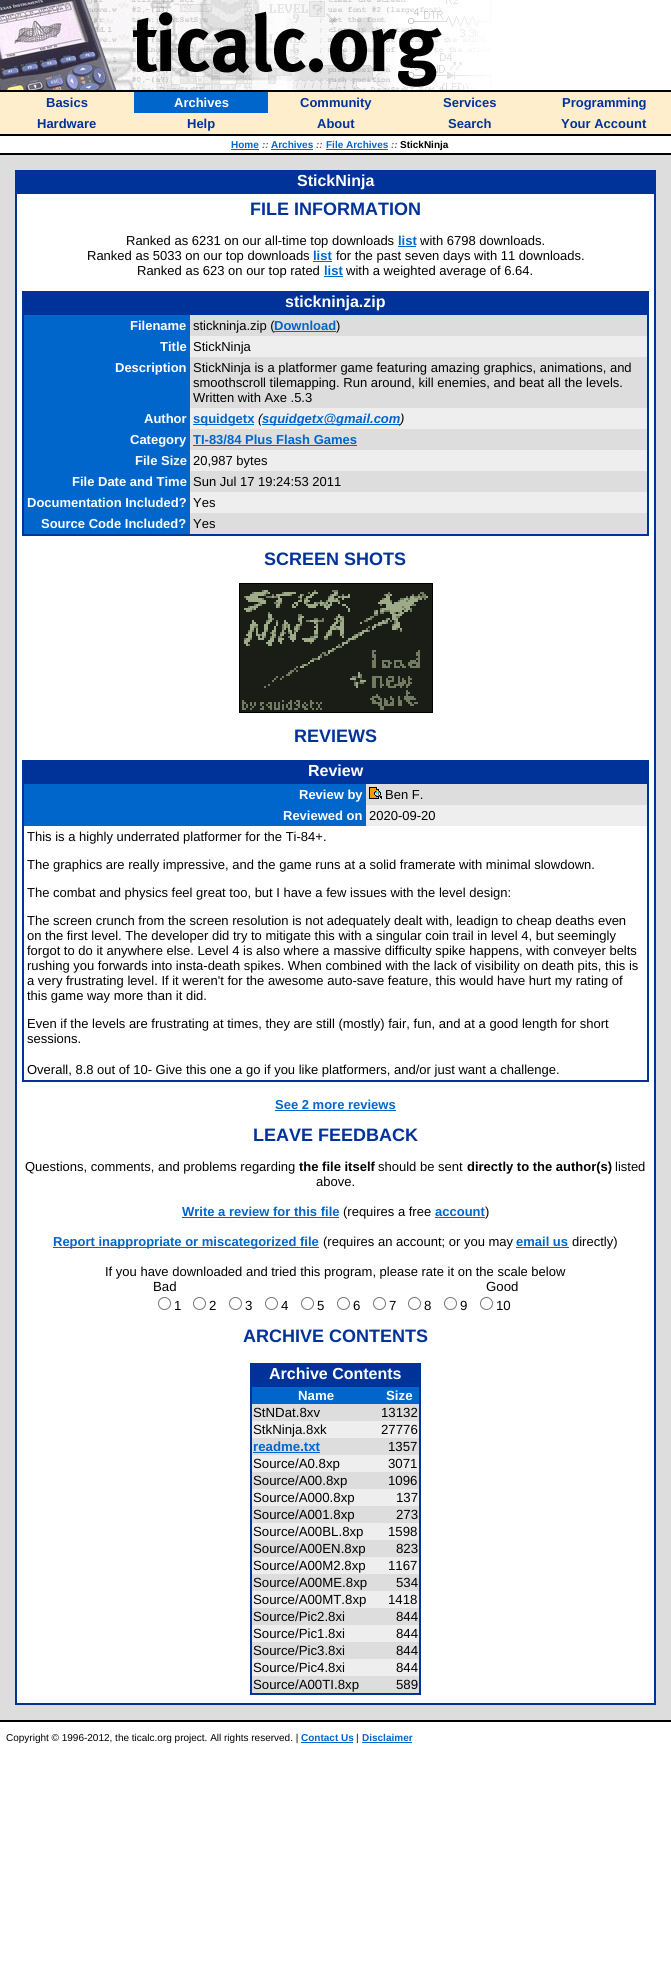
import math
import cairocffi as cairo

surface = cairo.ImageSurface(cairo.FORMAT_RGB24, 671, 1968)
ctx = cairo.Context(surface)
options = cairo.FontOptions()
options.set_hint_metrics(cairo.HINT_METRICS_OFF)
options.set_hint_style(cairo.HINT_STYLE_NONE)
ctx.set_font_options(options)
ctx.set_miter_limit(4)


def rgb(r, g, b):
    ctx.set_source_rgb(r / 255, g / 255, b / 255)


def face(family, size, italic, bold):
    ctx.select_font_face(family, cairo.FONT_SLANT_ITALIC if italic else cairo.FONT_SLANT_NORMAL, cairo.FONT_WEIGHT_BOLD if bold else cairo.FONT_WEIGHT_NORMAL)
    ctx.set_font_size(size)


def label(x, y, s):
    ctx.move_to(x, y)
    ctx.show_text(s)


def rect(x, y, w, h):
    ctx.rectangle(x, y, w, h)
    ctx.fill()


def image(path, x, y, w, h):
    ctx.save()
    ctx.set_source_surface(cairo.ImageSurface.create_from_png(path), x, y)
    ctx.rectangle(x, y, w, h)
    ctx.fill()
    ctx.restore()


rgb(255, 255, 255)
ctx.paint()
image('image0.png', 0, 0, 491, 90)
rgb(0, 0, 0)
rect(0, 90, 671, 2)
rgb(255, 238, 204)
rect(0, 92, 671, 42)
face('Liberation Sans', 13, 0, 1)
rgb(0, 51, 153)
label(46, 107, 'Basics')
rgb(0, 102, 204)
rect(134, 92, 134, 21)
rgb(255, 255, 255)
label(174, 107, 'Archives')
rgb(0, 51, 153)
label(300, 107, 'Community')
label(443, 107, 'Services')
label(562, 107, 'Programming')
label(37, 128, 'Hardware')
label(187, 128, 'Help')
label(317, 128, 'About')
label(448, 128, 'Search')
label(561, 128, 'Your Account')
rgb(0, 0, 0)
rect(0, 134, 671, 2)
face('Liberation Sans', 10, 0, 1)
rgb(0, 102, 204)
label(231, 148, 'Home')
rect(231, 149, 28, 1)
face('Liberation Sans', 10, 1, 1)
rgb(102, 102, 102)
label(262, 148, '::')
face('Liberation Sans', 10, 0, 1)
rgb(0, 102, 204)
label(271, 148, 'Archives')
rect(271, 149, 42, 1)
face('Liberation Sans', 10, 1, 1)
rgb(102, 102, 102)
label(316, 148, '::')
face('Liberation Sans', 10, 0, 1)
rgb(0, 102, 204)
label(326, 148, 'File Archives')
rect(326, 149, 62, 1)
face('Liberation Sans', 10, 1, 1)
rgb(102, 102, 102)
label(391, 148, '::')
face('Liberation Sans', 10, 0, 1)
rgb(0, 0, 0)
label(400, 148, 'StickNinja')
rect(0, 153, 671, 2)
rgb(221, 221, 221)
rect(0, 155, 671, 1565)
rgb(0, 51, 153)
rect(15, 170, 641, 1535)
face('Liberation Sans', 16, 0, 1)
rgb(255, 255, 255)
label(297, 186, 'StickNinja')
rect(17, 194, 637, 1509)
face('Liberation Sans', 18, 0, 1)
rgb(0, 51, 153)
label(250, 215, 'FILE INFORMATION')
face('Liberation Sans', 13, 0, 0)
rgb(0, 0, 0)
label(126, 245, 'Ranked as 6231 on our all-time top downloads')
face('Liberation Sans', 13, 0, 1)
rgb(0, 102, 204)
label(398, 245, 'list')
rect(398, 246, 18, 1)
face('Liberation Sans', 13, 0, 0)
rgb(0, 0, 0)
label(420, 245, 'with 6798 downloads.')
label(87, 260, 'Ranked as 5033 on our top downloads')
face('Liberation Sans', 13, 0, 1)
rgb(0, 102, 204)
label(313, 260, 'list')
rect(313, 261, 19, 1)
face('Liberation Sans', 13, 0, 0)
rgb(0, 0, 0)
label(336, 260, 'for the past seven days with 11 downloads.')
label(137, 275, 'Ranked as 623 on our top rated')
face('Liberation Sans', 13, 0, 1)
rgb(0, 102, 204)
label(324, 275, 'list')
rect(324, 276, 19, 1)
face('Liberation Sans', 13, 0, 0)
rgb(0, 0, 0)
label(346, 275, 'with a weighted average of 6.64.')
rgb(0, 51, 153)
rect(22, 291, 627, 245)
face('Liberation Sans', 16, 0, 1)
rgb(255, 255, 255)
label(285, 307, 'stickninja.zip')
rgb(0, 102, 204)
rect(24, 315, 166, 219)
face('Liberation Sans', 13, 0, 1)
rgb(255, 255, 255)
label(130, 330, 'Filename')
rgb(221, 221, 221)
rect(190, 315, 457, 21)
face('Liberation Sans', 13, 0, 0)
rgb(0, 0, 0)
label(193, 330, 'stickninja.zip (')
rgb(0, 102, 204)
rect(274, 331, 62, 1)
face('Liberation Sans', 13, 0, 1)
label(274, 330, 'Download')
face('Liberation Sans', 13, 0, 0)
rgb(0, 0, 0)
label(336, 330, ')')
face('Liberation Sans', 13, 0, 1)
rgb(255, 255, 255)
label(160, 351, 'Title')
rgb(238, 238, 238)
rect(190, 336, 457, 21)
face('Liberation Sans', 13, 0, 0)
rgb(0, 0, 0)
label(193, 351, 'StickNinja')
face('Liberation Sans', 13, 0, 1)
rgb(255, 255, 255)
label(115, 372, 'Description')
rgb(221, 221, 221)
rect(190, 357, 457, 51)
face('Liberation Sans', 13, 0, 0)
rgb(0, 0, 0)
label(193, 372, 'StickNinja is a platformer game featuring amazing graphics, animations, and')
label(193, 387, 'smoothscroll tilemapping. Run around, kill enemies, and beat all the levels.')
label(193, 402, 'Written with Axe .5.3')
face('Liberation Sans', 13, 0, 1)
rgb(255, 255, 255)
label(144, 423, 'Author')
rgb(238, 238, 238)
rect(190, 408, 457, 21)
rgb(0, 102, 204)
rect(193, 424, 61, 1)
label(193, 423, 'squidgetx')
face('Liberation Sans', 13, 1, 0)
rgb(0, 0, 0)
label(258, 423, '(')
rgb(0, 102, 204)
rect(262, 424, 138, 1)
face('Liberation Sans', 13, 1, 1)
label(262, 423, 'squidgetx@gmail.com')
face('Liberation Sans', 13, 1, 0)
rgb(0, 0, 0)
label(400, 423, ')')
face('Liberation Sans', 13, 0, 1)
rgb(255, 255, 255)
label(130, 444, 'Category')
rgb(221, 221, 221)
rect(190, 429, 457, 21)
rgb(0, 102, 204)
label(193, 444, 'TI-83/84 Plus Flash Games')
rect(193, 445, 164, 1)
rgb(255, 255, 255)
label(135, 465, 'File Size')
rgb(238, 238, 238)
rect(190, 450, 457, 21)
face('Liberation Sans', 13, 0, 0)
rgb(0, 0, 0)
label(193, 465, '20,987 bytes')
face('Liberation Sans', 13, 0, 1)
rgb(255, 255, 255)
label(72, 486, 'File Date and Time')
rgb(221, 221, 221)
rect(190, 471, 457, 21)
face('Liberation Sans', 13, 0, 0)
rgb(0, 0, 0)
label(193, 486, 'Sun Jul 17 19:24:53 2011')
face('Liberation Sans', 13, 0, 1)
rgb(255, 255, 255)
label(27, 507, 'Documentation Included?')
rgb(238, 238, 238)
rect(190, 492, 457, 21)
face('Liberation Sans', 13, 0, 0)
rgb(0, 0, 0)
label(193, 507, 'Yes')
face('Liberation Sans', 13, 0, 1)
rgb(255, 255, 255)
label(41, 528, 'Source Code Included?')
rgb(221, 221, 221)
rect(190, 513, 457, 21)
face('Liberation Sans', 13, 0, 0)
rgb(0, 0, 0)
label(193, 528, 'Yes')
face('Liberation Sans', 18, 0, 1)
rgb(0, 51, 153)
label(264, 565, 'SCREEN SHOTS')
ctx.rectangle(239.5, 583.5, 193, 129)
rgb(0, 0, 0)
ctx.set_line_width(1)
ctx.stroke()
image('image1.png', 240, 584, 192, 128)
rgb(0, 51, 153)
label(294, 742, 'REVIEWS')
rect(22, 760, 627, 322)
face('Liberation Sans', 16, 0, 1)
rgb(255, 255, 255)
label(308, 776, 'Review')
rgb(0, 102, 204)
rect(24, 784, 342, 42)
face('Liberation Sans', 13, 0, 1)
rgb(255, 255, 255)
label(299, 799, 'Review by')
rgb(221, 221, 221)
rect(366, 784, 281, 21)
image('image2.png', 369, 787, 13, 12)
face('Liberation Sans', 13, 0, 0)
rgb(0, 0, 0)
label(385, 799, 'Ben F.')
face('Liberation Sans', 13, 0, 1)
rgb(255, 255, 255)
label(283, 820, 'Reviewed on')
rgb(238, 238, 238)
rect(366, 805, 281, 21)
face('Liberation Sans', 13, 0, 0)
rgb(0, 0, 0)
label(369, 820, '2020-09-20')
rgb(255, 255, 255)
rect(24, 826, 623, 254)
rgb(0, 0, 0)
label(27, 841, 'This is a highly underrated platformer for the Ti-84+.')
label(27, 869, 'The graphics are really impressive, and the game runs at a solid framerate with minimal slowdown.')
label(27, 897, 'The combat and physics feel great too, but I have a few issues with the level design:')
label(27, 925, 'The screen crunch from the screen resolution is not adequately dealt with, leadign to cheap deaths even')
label(27, 940, 'on the first level. The developer did try to mitigate this with a singular coin trail in level 4, but seemingly')
label(27, 955, 'forgot to do it anywhere else. Level 4 is also where a massive difficulty spike happens, with conveyer belts')
label(27, 970, 'rushing you forwards into insta-death spikes. When combined with the lack of visibility on death pits, this is')
label(27, 985, 'a very frustrating level. If it weren\'t for the awesome auto-save feature, this would have hurt my rating of')
label(27, 1000, 'this game way more than it did.')
label(27, 1028, 'Even if the levels are frustrating at times, they are still (mostly) fair, fun, and at a good length for short')
label(27, 1043, 'sessions.')
label(27, 1074, 'Overall, 8.8 out of 10- Give this one a go if you like platformers, and/or just want a challenge.')
face('Liberation Sans', 13, 0, 1)
rgb(0, 102, 204)
label(275, 1109, 'See 2 more reviews')
rect(275, 1110, 121, 1)
face('Liberation Sans', 18, 0, 1)
rgb(0, 51, 153)
label(253, 1141, 'LEAVE FEEDBACK')
face('Liberation Sans', 13, 0, 0)
rgb(0, 0, 0)
label(25, 1171, 'Questions, comments, and problems regarding')
face('Liberation Sans', 13, 0, 1)
label(299, 1171, 'the file itself')
face('Liberation Sans', 13, 0, 0)
label(378, 1171, 'should be sent')
face('Liberation Sans', 13, 0, 1)
label(467, 1171, 'directly to the author(s)')
face('Liberation Sans', 13, 0, 0)
label(615, 1171, 'listed')
label(316, 1186, 'above.')
face('Liberation Sans', 13, 0, 1)
rgb(0, 102, 204)
label(182, 1216, 'Write a review for this file')
rect(182, 1217, 157, 1)
face('Liberation Sans', 13, 0, 0)
rgb(0, 0, 0)
label(343, 1216, '(requires a free')
face('Liberation Sans', 13, 0, 1)
rgb(0, 102, 204)
label(435, 1216, 'account')
rect(435, 1217, 50, 1)
face('Liberation Sans', 13, 0, 0)
rgb(0, 0, 0)
label(485, 1216, ')')
rgb(0, 102, 204)
rect(53, 1247, 266, 1)
face('Liberation Sans', 13, 0, 1)
label(53, 1246, 'Report inappropriate or miscategorized file')
face('Liberation Sans', 13, 0, 0)
rgb(0, 0, 0)
label(323, 1246, '(requires an account; or you may')
face('Liberation Sans', 13, 0, 1)
rgb(0, 102, 204)
label(516, 1246, 'email us')
rect(516, 1247, 53, 1)
face('Liberation Sans', 13, 0, 0)
rgb(0, 0, 0)
label(572, 1246, 'directly)')
label(105, 1276, 'If you have downloaded and tried this program, please rate it on the scale below')
face('Liberation Sans', 13.25, 0, 0)
label(153, 1291, 'Bad')
label(486, 1291, 'Good')
ctx.new_path()
ctx.arc(164.5, 1303.5, 6, 0, 2 * math.pi)
rgb(118, 118, 118)
ctx.stroke()
rgb(0, 0, 0)
label(174, 1310, '1')
ctx.new_path()
ctx.arc(199.5, 1303.5, 6, 0, 2 * math.pi)
rgb(118, 118, 118)
ctx.stroke()
rgb(0, 0, 0)
label(209, 1310, '2')
ctx.new_path()
ctx.arc(235.5, 1303.5, 6, 0, 2 * math.pi)
rgb(118, 118, 118)
ctx.stroke()
rgb(0, 0, 0)
label(245, 1310, '3')
ctx.new_path()
ctx.arc(271.5, 1303.5, 6, 0, 2 * math.pi)
rgb(118, 118, 118)
ctx.stroke()
rgb(0, 0, 0)
label(281, 1310, '4')
ctx.new_path()
ctx.arc(307.5, 1303.5, 6, 0, 2 * math.pi)
rgb(118, 118, 118)
ctx.stroke()
rgb(0, 0, 0)
label(317, 1310, '5')
ctx.new_path()
ctx.arc(343.5, 1303.5, 6, 0, 2 * math.pi)
rgb(118, 118, 118)
ctx.stroke()
rgb(0, 0, 0)
label(353, 1310, '6')
ctx.new_path()
ctx.arc(379.5, 1303.5, 6, 0, 2 * math.pi)
rgb(118, 118, 118)
ctx.stroke()
rgb(0, 0, 0)
label(389, 1310, '7')
ctx.new_path()
ctx.arc(414.5, 1303.5, 6, 0, 2 * math.pi)
rgb(118, 118, 118)
ctx.stroke()
rgb(0, 0, 0)
label(424, 1310, '8')
ctx.new_path()
ctx.arc(450.5, 1303.5, 6, 0, 2 * math.pi)
rgb(118, 118, 118)
ctx.stroke()
rgb(0, 0, 0)
label(460, 1310, '9')
ctx.new_path()
ctx.arc(486.5, 1303.5, 6, 0, 2 * math.pi)
rgb(118, 118, 118)
ctx.stroke()
rgb(0, 0, 0)
label(496, 1310, '10')
face('Liberation Sans', 18, 0, 1)
rgb(0, 51, 153)
label(243, 1342, 'ARCHIVE CONTENTS')
rect(250, 1363, 171, 332)
face('Liberation Sans', 16, 0, 1)
rgb(255, 255, 255)
label(269, 1379, 'Archive Contents')
rgb(0, 102, 204)
rect(252, 1387, 167, 17)
face('Liberation Sans', 13.25, 0, 1)
rgb(255, 255, 255)
label(298, 1400, 'Name')
label(386, 1400, 'Size')
rgb(221, 221, 221)
rect(252, 1404, 167, 17)
face('Liberation Sans', 13.25, 0, 0)
rgb(0, 0, 0)
label(253, 1417, 'StNDat.8xv')
label(381, 1417, '13132')
rgb(238, 238, 238)
rect(252, 1421, 167, 17)
rgb(0, 0, 0)
label(253, 1434, 'StkNinja.8xk')
label(381, 1434, '27776')
rgb(221, 221, 221)
rect(252, 1438, 167, 17)
face('Liberation Sans', 13.25, 0, 1)
rgb(0, 102, 204)
label(253, 1451, 'readme.txt')
rect(253, 1452, 67, 1)
face('Liberation Sans', 13.25, 0, 0)
rgb(0, 0, 0)
label(388, 1451, '1357')
rgb(238, 238, 238)
rect(252, 1455, 167, 17)
rgb(0, 0, 0)
label(253, 1468, 'Source/A0.8xp')
label(388, 1468, '3071')
rgb(221, 221, 221)
rect(252, 1472, 167, 17)
rgb(0, 0, 0)
label(253, 1485, 'Source/A00.8xp')
label(388, 1485, '1096')
rgb(238, 238, 238)
rect(252, 1489, 167, 17)
rgb(0, 0, 0)
label(253, 1502, 'Source/A000.8xp')
label(396, 1502, '137')
rgb(221, 221, 221)
rect(252, 1506, 167, 17)
rgb(0, 0, 0)
label(253, 1519, 'Source/A001.8xp')
label(396, 1519, '273')
rgb(238, 238, 238)
rect(252, 1523, 167, 17)
rgb(0, 0, 0)
label(253, 1536, 'Source/A00BL.8xp')
label(388, 1536, '1598')
rgb(221, 221, 221)
rect(252, 1540, 167, 17)
rgb(0, 0, 0)
label(253, 1553, 'Source/A00EN.8xp')
label(396, 1553, '823')
rgb(238, 238, 238)
rect(252, 1557, 167, 17)
rgb(0, 0, 0)
label(253, 1570, 'Source/A00M2.8xp')
label(388, 1570, '1167')
rgb(221, 221, 221)
rect(252, 1574, 167, 17)
rgb(0, 0, 0)
label(253, 1587, 'Source/A00ME.8xp')
label(396, 1587, '534')
rgb(238, 238, 238)
rect(252, 1591, 167, 17)
rgb(0, 0, 0)
label(253, 1604, 'Source/A00MT.8xp')
label(388, 1604, '1418')
rgb(221, 221, 221)
rect(252, 1608, 167, 17)
rgb(0, 0, 0)
label(253, 1621, 'Source/Pic2.8xi')
label(396, 1621, '844')
rgb(238, 238, 238)
rect(252, 1625, 167, 17)
rgb(0, 0, 0)
label(253, 1638, 'Source/Pic1.8xi')
label(396, 1638, '844')
rgb(221, 221, 221)
rect(252, 1642, 167, 17)
rgb(0, 0, 0)
label(253, 1655, 'Source/Pic3.8xi')
label(396, 1655, '844')
rgb(238, 238, 238)
rect(252, 1659, 167, 17)
rgb(0, 0, 0)
label(253, 1672, 'Source/Pic4.8xi')
label(396, 1672, '844')
rgb(221, 221, 221)
rect(252, 1676, 167, 17)
rgb(0, 0, 0)
label(253, 1689, 'Source/A00TI.8xp')
label(396, 1689, '589')
rect(0, 1720, 671, 2)
face('Liberation Sans', 10, 0, 0)
label(6, 1741, 'Copyright © 1996-2012, the ticalc.org project. All rights reserved. |')
face('Liberation Sans', 10, 0, 1)
rgb(0, 102, 204)
label(301, 1741, 'Contact Us')
rect(301, 1742, 52, 1)
face('Liberation Sans', 10, 0, 0)
rgb(0, 0, 0)
label(356, 1741, '|')
face('Liberation Sans', 10, 0, 1)
rgb(0, 102, 204)
label(362, 1741, 'Disclaimer')
rect(362, 1742, 50, 1)
surface.write_to_png('render.png')
